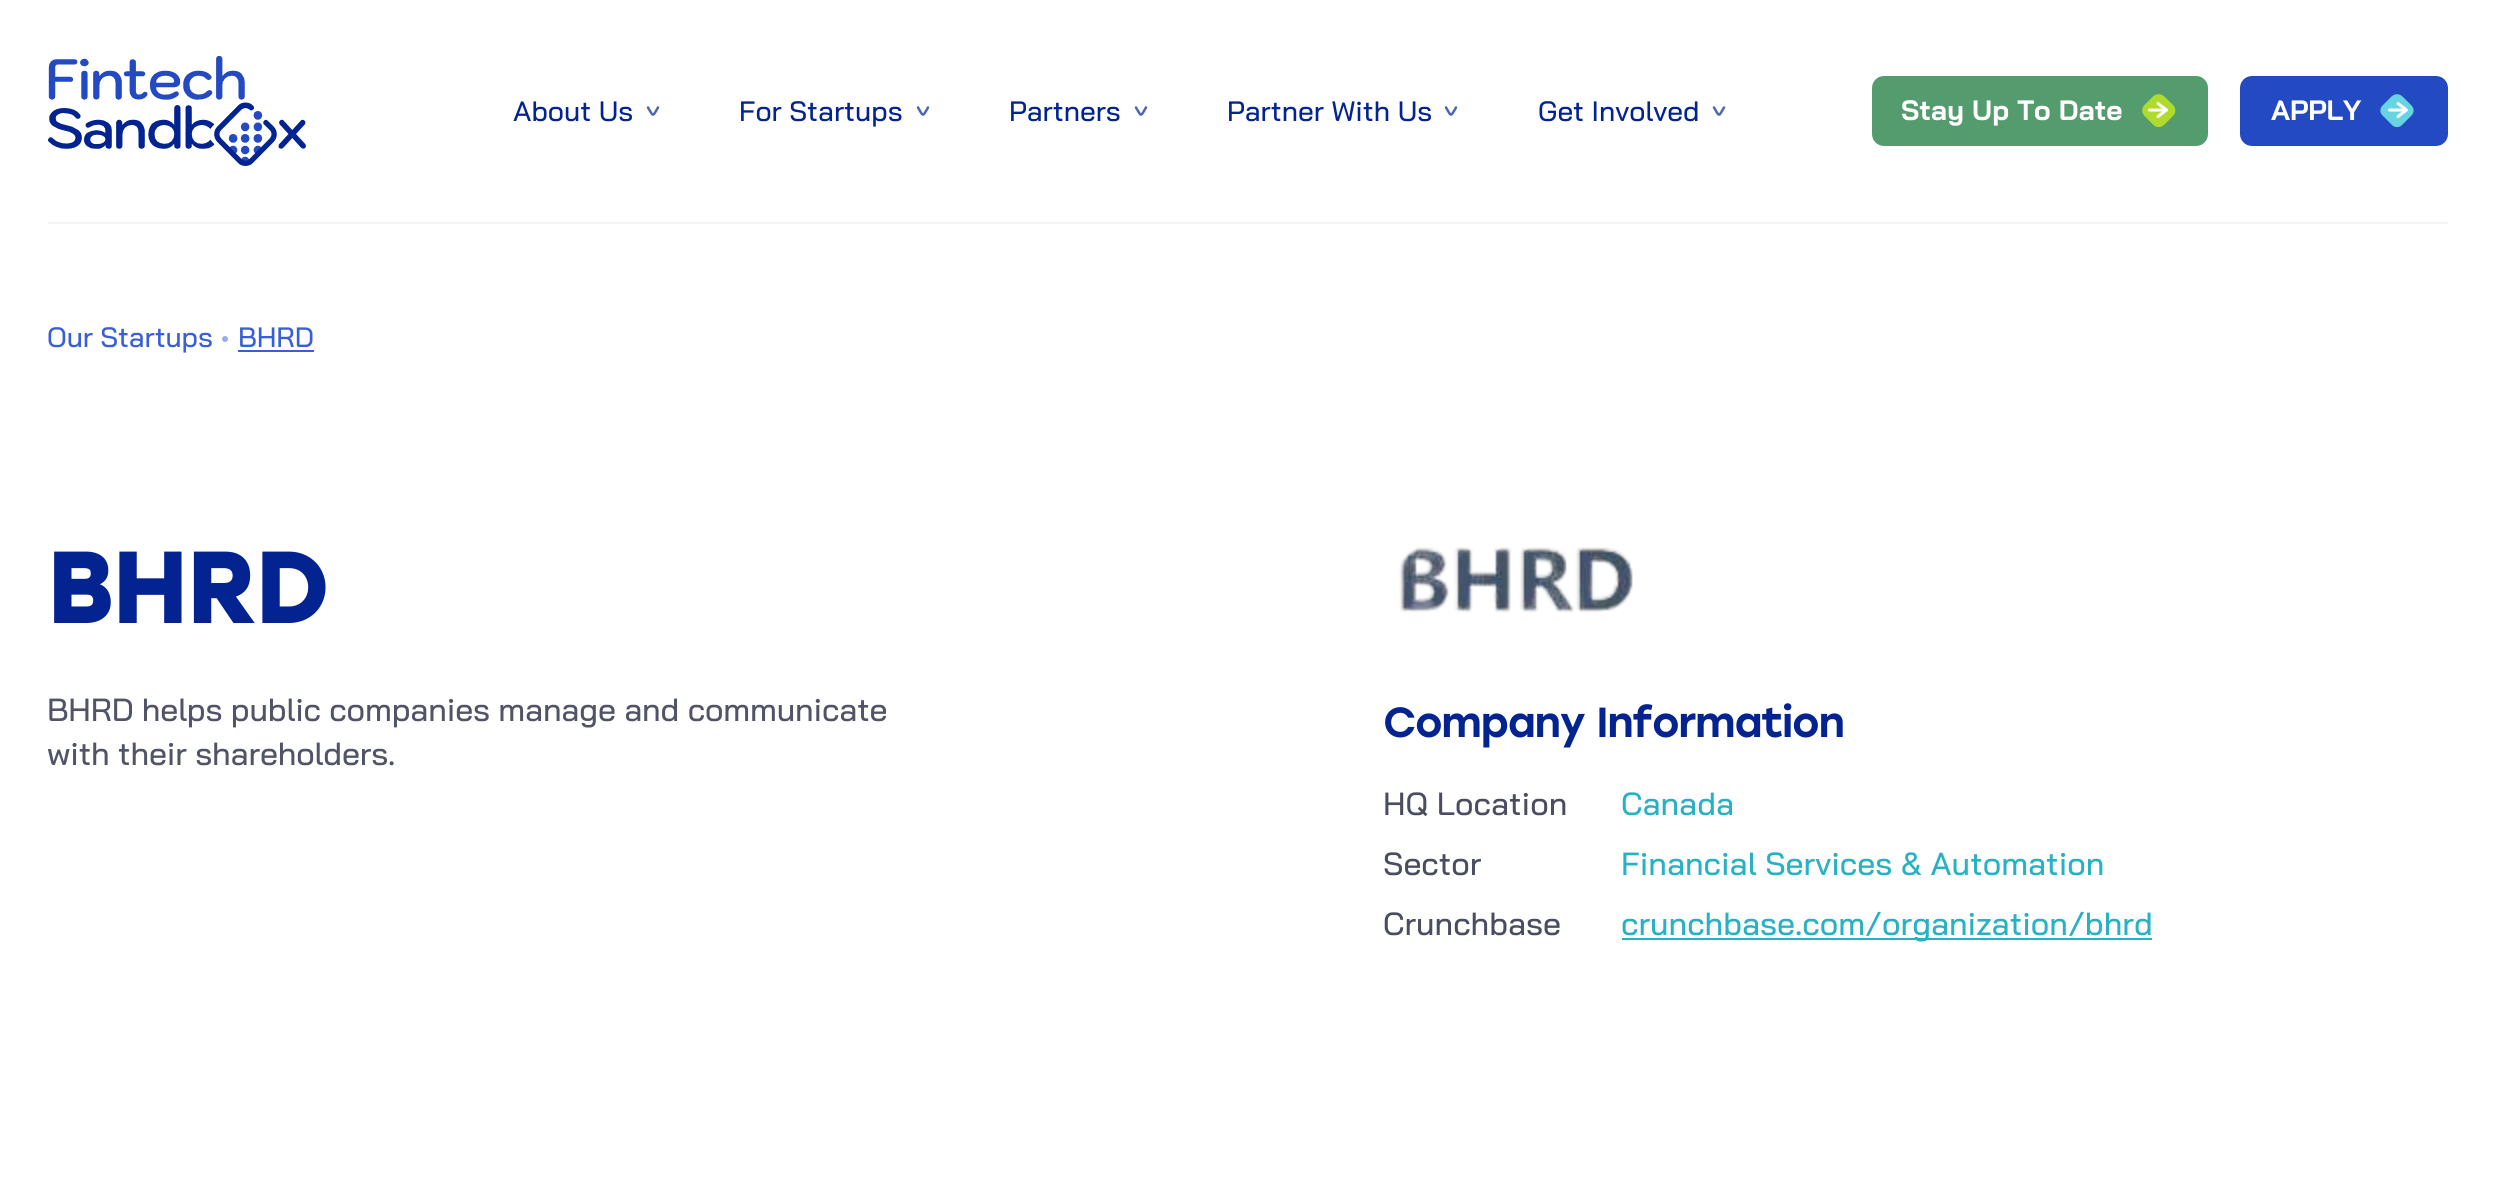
import math
import cairocffi as cairo

surface = cairo.ImageSurface(cairo.FORMAT_RGB24, 2494, 1199)
ctx = cairo.Context(surface)
options = cairo.FontOptions()
options.set_hint_metrics(cairo.HINT_METRICS_OFF)
options.set_hint_style(cairo.HINT_STYLE_NONE)
ctx.set_font_options(options)
ctx.set_miter_limit(4)


def rgb(r, g, b):
    ctx.set_source_rgb(r / 255, g / 255, b / 255)


def face(family, size, italic, bold):
    ctx.select_font_face(family, cairo.FONT_SLANT_ITALIC if italic else cairo.FONT_SLANT_NORMAL, cairo.FONT_WEIGHT_BOLD if bold else cairo.FONT_WEIGHT_NORMAL)
    ctx.set_font_size(size)


def label(x, y, s):
    ctx.move_to(x, y)
    ctx.show_text(s)


def tracked(x, y, s, letter, word):
    ctx.move_to(x, y)
    for ch in s:
        ctx.show_text(ch)
        ctx.rel_move_to(letter + word * (ch == ' '), 0)


def rect(x, y, w, h):
    ctx.rectangle(x, y, w, h)
    ctx.fill()


def rrect(x, y, w, h, r):
    ctx.new_sub_path()
    for i, (u, v) in enumerate([(x + w - r, y + h - r), (x + r, y + h - r), (x + r, y + r), (x + w - r, y + r)]):
        ctx.arc(u, v, r, i * math.pi / 2, (i + 1) * math.pi / 2)
    ctx.close_path()


def image(path, x, y, w, h):
    ctx.save()
    ctx.set_source_surface(cairo.ImageSurface.create_from_png(path), x, y)
    ctx.rectangle(x, y, w, h)
    ctx.fill()
    ctx.restore()


rgb(255, 255, 255)
ctx.paint()
rgb(244, 244, 244)
rect(48, 222, 2400, 2)
image('image0.png', 48, 56, 258, 110)
face('Bai Jamjuree Medium', 28, 0, 0)
rgb(3, 36, 144)
label(513, 121, 'About Us')
ctx.new_path()
ctx.move_to(648, 107.5)
ctx.curve_to(653.5, 117, 652.5, 117, 658, 107.5)
rgb(79, 102, 177)
ctx.set_line_width(2.5)
ctx.set_line_cap(cairo.LINE_CAP_ROUND)
ctx.set_line_join(cairo.LINE_JOIN_ROUND)
ctx.stroke()
rgb(3, 36, 144)
label(739, 121, 'For Startups')
ctx.new_path()
ctx.move_to(918, 107.5)
ctx.curve_to(923.5, 117, 922.5, 117, 928, 107.5)
rgb(79, 102, 177)
ctx.stroke()
rgb(3, 36, 144)
label(1009, 121, 'Partners')
ctx.new_path()
ctx.move_to(1136, 107.5)
ctx.curve_to(1141.5, 117, 1140.5, 117, 1146, 107.5)
rgb(79, 102, 177)
ctx.stroke()
rgb(3, 36, 144)
label(1227, 121, 'Partner With Us')
ctx.new_path()
ctx.move_to(1446, 107.5)
ctx.curve_to(1451.5, 117, 1450.5, 117, 1456, 107.5)
rgb(79, 102, 177)
ctx.stroke()
rgb(3, 36, 144)
label(1538, 121, 'Get Involved')
ctx.new_path()
ctx.move_to(1714, 107.5)
ctx.curve_to(1719.5, 117, 1718.5, 117, 1724, 107.5)
rgb(79, 102, 177)
ctx.stroke()
rgb(84, 155, 110)
rrect(1872, 76, 336, 70, 12)
ctx.fill()
face('Bai Jamjuree', 28, 0, 1)
rgb(255, 255, 255)
label(1901, 120, 'Stay Up To Date')
rgb(174, 219, 46)
ctx.new_path()
ctx.move_to(2164.5, 96.5)
ctx.line_to(2173, 105)
ctx.curve_to(2176, 108, 2176, 113, 2173, 116)
ctx.line_to(2164.5, 124.5)
ctx.curve_to(2161, 128, 2156, 128, 2153, 124.5)
ctx.line_to(2144.5, 116)
ctx.curve_to(2141.5, 113, 2141.5, 108, 2144.5, 105)
ctx.line_to(2153, 96.5)
ctx.curve_to(2156, 93.5, 2161, 93.5, 2164.5, 96.5)
ctx.close_path()
ctx.fill()
ctx.new_path()
ctx.move_to(2158, 103.5)
ctx.line_to(2166.5, 110)
ctx.line_to(2158, 116.5)
rgb(255, 255, 255)
ctx.set_line_width(3)
ctx.stroke()
ctx.new_path()
ctx.move_to(2149.5, 110)
ctx.line_to(2165.5, 110)
ctx.set_line_join(cairo.LINE_JOIN_MITER)
ctx.stroke()
rgb(35, 73, 195)
rrect(2240, 76, 208, 70, 12)
ctx.fill()
rgb(255, 255, 255)
label(2271, 120, 'APPLY')
rgb(103, 212, 227)
ctx.new_path()
ctx.move_to(2402.5, 96.5)
ctx.line_to(2411, 105)
ctx.curve_to(2414.5, 108, 2414.5, 113, 2411, 116)
ctx.line_to(2402.5, 124.5)
ctx.curve_to(2399.5, 128, 2394.5, 128, 2391.5, 124.5)
ctx.line_to(2383, 116)
ctx.curve_to(2379.5, 113, 2379.5, 108, 2383, 105)
ctx.line_to(2391.5, 96.5)
ctx.curve_to(2394.5, 93.5, 2399.5, 93.5, 2402.5, 96.5)
ctx.close_path()
ctx.fill()
ctx.new_path()
ctx.move_to(2398, 103.5)
ctx.line_to(2406.5, 110)
ctx.line_to(2398, 116.5)
rgb(255, 255, 255)
ctx.set_line_join(cairo.LINE_JOIN_ROUND)
ctx.stroke()
ctx.new_path()
ctx.move_to(2389.5, 110)
ctx.line_to(2405.5, 110)
ctx.set_line_join(cairo.LINE_JOIN_MITER)
ctx.stroke()
face('Bai Jamjuree Medium', 28, 0, 0)
rgb(57, 95, 216)
tracked(47, 347, 'Our Startups', -0.1, 0)
rgb(155, 174, 235)
ctx.new_path()
ctx.arc(225, 339, 3, 0, 2 * math.pi)
ctx.fill()
rgb(57, 95, 216)
tracked(238, 347, 'BHRD', -0.1, 0)
rect(238, 350, 76, 2)
face('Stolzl', 102, 0, 1)
rgb(3, 36, 144)
tracked(47, 623, 'BHRD', -2, 0)
face('Bai Jamjuree Medium', 32, 0, 0)
rgb(81, 84, 103)
tracked(47, 721, 'BHRD helps public companies manage and communicate', -0.15, 0)
tracked(47, 765, 'with their shareholders.', -0.15, 0)
image('image1.png', 1399, 547, 234, 66)
face('Stolzl Medium', 42, 0, 0)
rgb(3, 36, 144)
tracked(1383, 737, 'Company Information', -1.1, 0)
face('Bai Jamjuree Medium', 32, 0, 0)
rgb(74, 77, 95)
label(1383, 815, 'HQ Location')
rgb(38, 177, 196)
label(1621, 815, 'Canada')
rgb(74, 77, 95)
label(1383, 875, 'Sector')
rgb(38, 177, 196)
label(1621, 875, 'Financial Services & Automation')
rgb(74, 77, 95)
label(1383, 935, 'Crunchbase')
rgb(38, 177, 196)
rect(1622, 938, 530, 2)
label(1621, 935, 'crunchbase.com/organization/bhrd')
surface.write_to_png('render.png')
